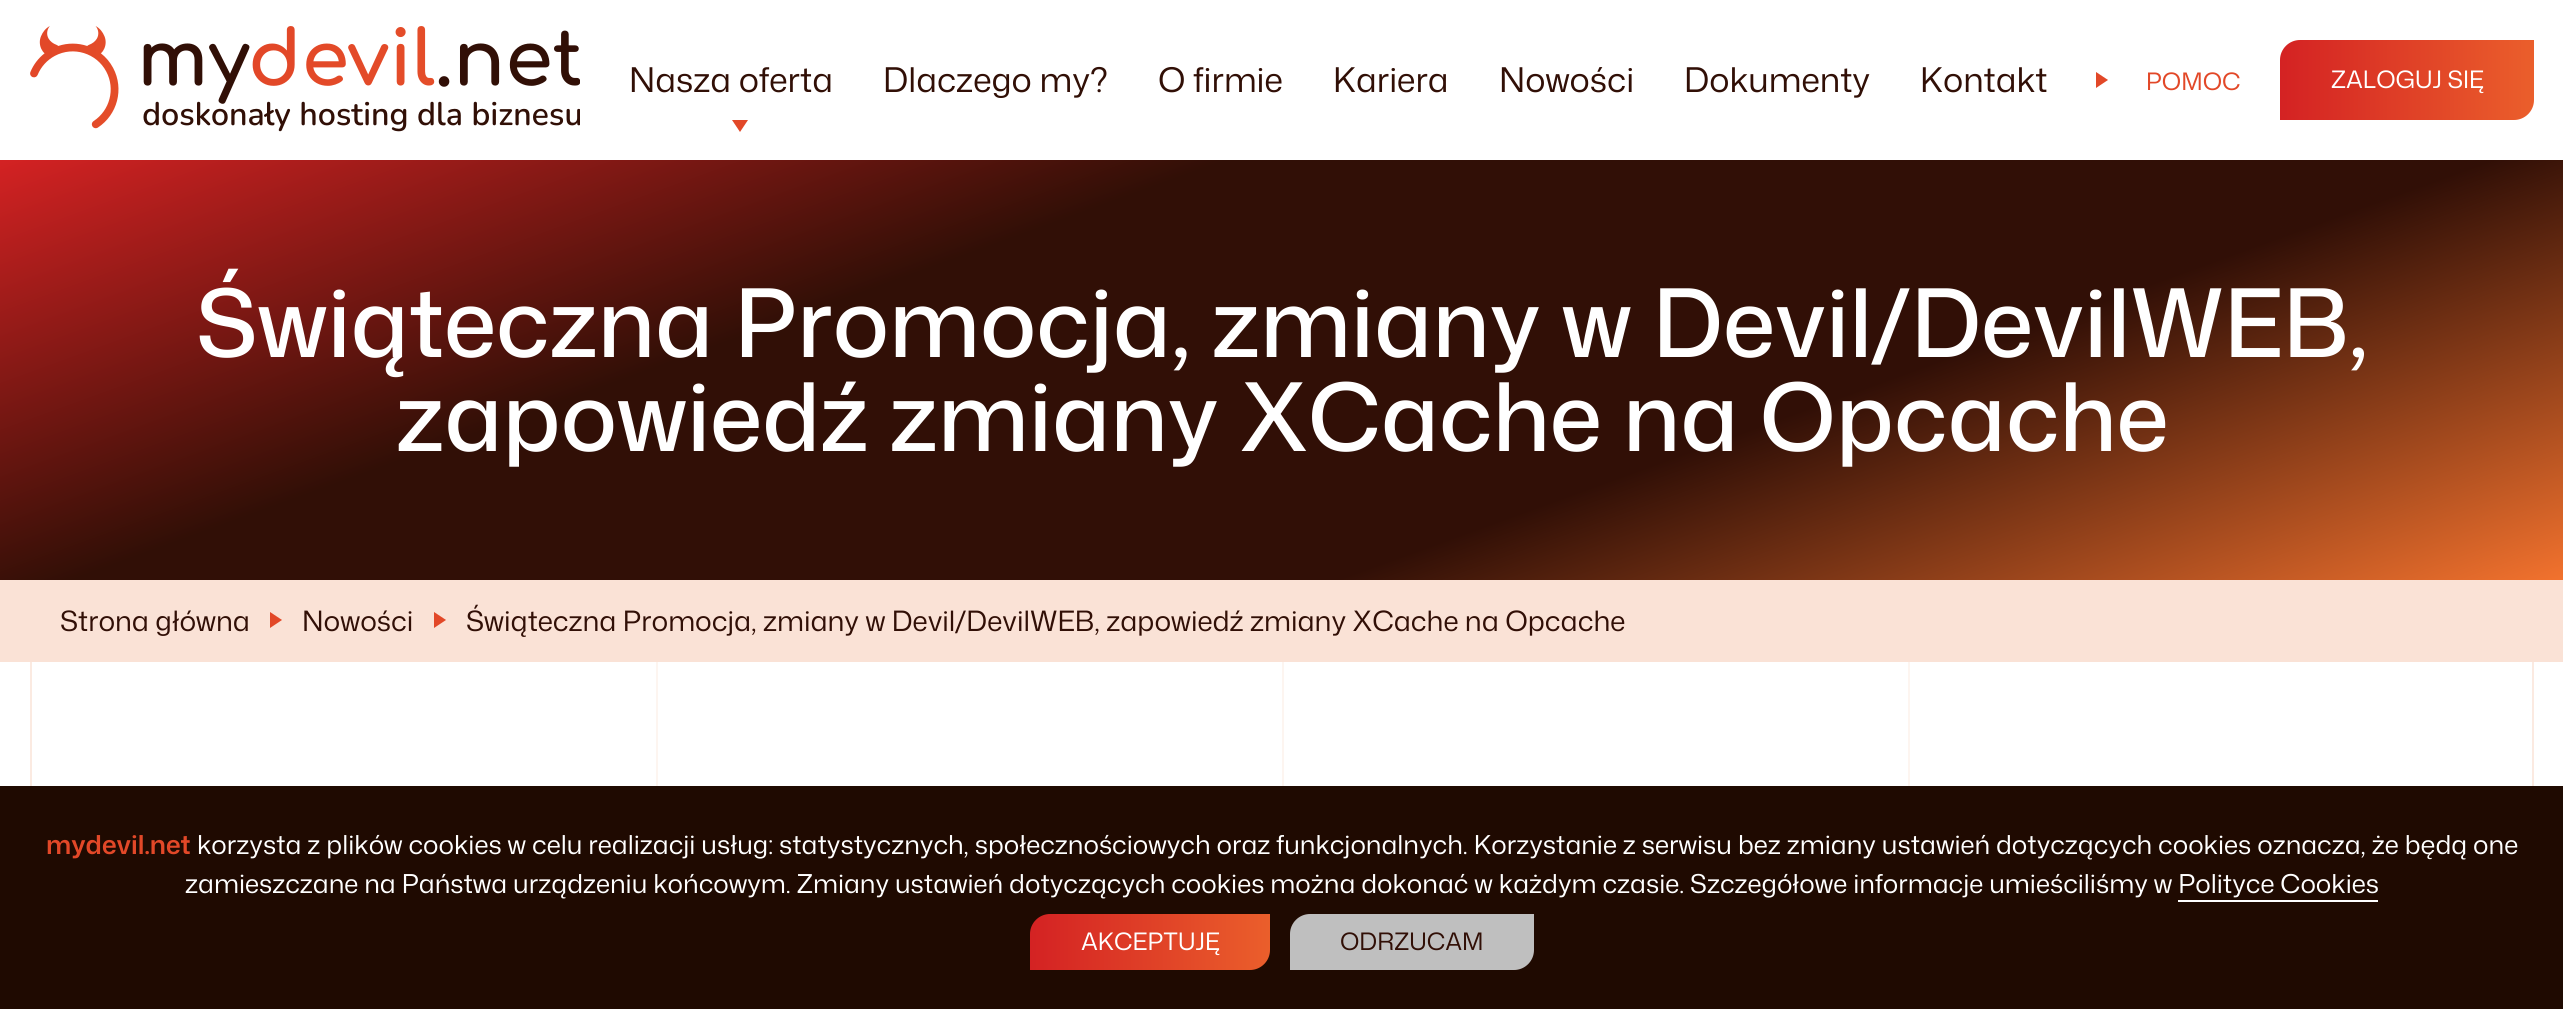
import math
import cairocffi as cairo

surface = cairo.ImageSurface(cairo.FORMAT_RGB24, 2563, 1009)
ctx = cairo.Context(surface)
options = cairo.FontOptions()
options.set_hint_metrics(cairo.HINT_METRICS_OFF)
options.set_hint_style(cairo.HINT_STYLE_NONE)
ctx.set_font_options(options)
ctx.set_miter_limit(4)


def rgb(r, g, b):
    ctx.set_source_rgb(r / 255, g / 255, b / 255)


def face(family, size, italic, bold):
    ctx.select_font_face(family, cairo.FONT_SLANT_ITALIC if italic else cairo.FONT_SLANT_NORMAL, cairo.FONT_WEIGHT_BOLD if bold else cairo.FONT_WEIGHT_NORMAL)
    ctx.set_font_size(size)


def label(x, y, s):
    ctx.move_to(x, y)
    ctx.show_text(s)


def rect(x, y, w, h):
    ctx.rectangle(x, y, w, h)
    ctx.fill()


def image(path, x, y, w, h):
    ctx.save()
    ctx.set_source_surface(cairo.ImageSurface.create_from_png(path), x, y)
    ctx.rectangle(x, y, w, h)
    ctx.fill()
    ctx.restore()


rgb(255, 255, 255)
ctx.paint()
image('image0.png', 30, 26, 550, 106)
face('Mona Sans', 34, 0, 0)
rgb(49, 15, 6)
label(629, 92, 'Nasza oferta')
rgb(226, 72, 40)
ctx.new_path()
ctx.move_to(732, 120)
ctx.line_to(748, 120)
ctx.line_to(740, 132)
ctx.close_path()
ctx.fill()
rgb(49, 15, 6)
label(883, 92, 'Dlaczego my?')
label(1158, 92, 'O firmie')
label(1333, 92, 'Kariera')
label(1499, 92, 'Nowości')
label(1684, 92, 'Dokumenty')
label(1920, 92, 'Kontakt')
rgb(226, 72, 40)
ctx.new_path()
ctx.move_to(2096, 88)
ctx.line_to(2096, 72)
ctx.line_to(2108, 80)
ctx.close_path()
ctx.fill()
face('Mona Sans', 24, 0, 0)
label(2146, 90, 'POMOC')
gradient = cairo.LinearGradient(2280, 200, 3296, 200)
gradient.add_color_stop_rgba(0, 0.831, 0.133, 0.137, 1)
gradient.add_color_stop_rgba(0.33, 0.949, 0.447, 0.18, 1)
gradient.add_color_stop_rgba(0.67, 0.831, 0.133, 0.137, 1)
gradient.add_color_stop_rgba(1, 0.949, 0.447, 0.18, 1)
ctx.set_source(gradient)
ctx.new_path()
ctx.move_to(2300, 40)
ctx.line_to(2534, 40)
ctx.line_to(2534, 100)
ctx.curve_to(2534, 111, 2525, 120, 2514, 120)
ctx.line_to(2280, 120)
ctx.line_to(2280, 60)
ctx.curve_to(2280, 49, 2289, 40, 2300, 40)
ctx.close_path()
ctx.fill()
rgb(255, 255, 255)
label(2331, 88, 'ZALOGUJ SIĘ')
gradient = cairo.LinearGradient(1065, -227, 1499, 967)
gradient.add_color_stop_rgba(0, 0.831, 0.133, 0.137, 1)
gradient.add_color_stop_rgba(0.33, 0.192, 0.059, 0.024, 1)
gradient.add_color_stop_rgba(0.67, 0.192, 0.059, 0.024, 1)
gradient.add_color_stop_rgba(1, 0.949, 0.447, 0.18, 1)
ctx.set_source(gradient)
rect(0, 160, 2563, 420)
face('Mona Sans Medium', 94.25, 0, 0)
rgb(255, 255, 255)
label(196, 357, 'Świąteczna Promocja, zmiany w Devil/DevilWEB,')
label(396, 451, 'zapowiedź zmiany XCache na Opcache')
rgb(250, 226, 214)
rect(0, 580, 2563, 82)
face('Mona Sans', 28, 0, 0)
rgb(49, 15, 6)
label(60, 631, 'Strona główna')
rgb(226, 72, 40)
ctx.new_path()
ctx.move_to(270, 628)
ctx.line_to(270, 612)
ctx.line_to(282, 620)
ctx.close_path()
ctx.fill()
rgb(49, 15, 6)
label(302, 631, 'Nowości')
rgb(226, 72, 40)
ctx.new_path()
ctx.move_to(434, 628)
ctx.line_to(434, 612)
ctx.line_to(446, 620)
ctx.close_path()
ctx.fill()
rgb(49, 15, 6)
label(466, 631, 'Świąteczna Promocja, zmiany w Devil/DevilWEB, zapowiedź zmiany XCache na Opcache')
rgb(251, 234, 225)
rect(30, 662, 2, 124)
rgb(253, 245, 240)
rect(656, 662, 2, 124)
rect(1282, 662, 2, 124)
rect(1908, 662, 2, 124)
rgb(251, 234, 225)
rect(2532, 662, 2, 124)
rgb(31, 10, 1)
rect(0, 786, 2563, 223)
face('Mona Sans SemiBold', 26, 0, 0)
rgb(226, 72, 40)
label(46, 854, 'mydevil.net')
face('Mona Sans', 26, 0, 0)
rgb(255, 255, 255)
label(197, 854, 'korzysta z plików cookies w celu realizacji usług: statystycznych, społecznościowych oraz funkcjonalnych. Korzystanie z serwisu bez zmiany ustawień dotyczących cookies oznacza, że będą one')
label(185, 893, 'zamieszczane na Państwa urządzeniu końcowym. Zmiany ustawień dotyczących cookies można dokonać w każdym czasie. Szczegółowe informacje umieściliśmy w Polityce Cookies')
rect(2178, 900, 200, 2)
gradient = cairo.LinearGradient(1030, 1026, 1990, 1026)
gradient.add_color_stop_rgba(0, 0.831, 0.133, 0.137, 1)
gradient.add_color_stop_rgba(0.33, 0.949, 0.447, 0.18, 1)
gradient.add_color_stop_rgba(0.67, 0.831, 0.133, 0.137, 1)
gradient.add_color_stop_rgba(1, 0.949, 0.447, 0.18, 1)
ctx.set_source(gradient)
ctx.new_path()
ctx.move_to(1050, 914)
ctx.line_to(1270, 914)
ctx.line_to(1270, 950)
ctx.curve_to(1270, 961, 1261, 970, 1250, 970)
ctx.line_to(1030, 970)
ctx.line_to(1030, 934)
ctx.curve_to(1030, 923, 1039, 914, 1050, 914)
ctx.close_path()
ctx.fill()
face('Mona Sans', 24, 0, 0)
rgb(255, 255, 255)
label(1081, 950, 'AKCEPTUJĘ')
rgb(191, 191, 191)
ctx.new_path()
ctx.move_to(1310, 914)
ctx.line_to(1534, 914)
ctx.line_to(1534, 950)
ctx.curve_to(1534, 961, 1525, 970, 1514, 970)
ctx.line_to(1290, 970)
ctx.line_to(1290, 934)
ctx.curve_to(1290, 923, 1299, 914, 1310, 914)
ctx.close_path()
ctx.fill()
rgb(49, 15, 6)
label(1340, 950, 'ODRZUCAM')
surface.write_to_png('render.png')
